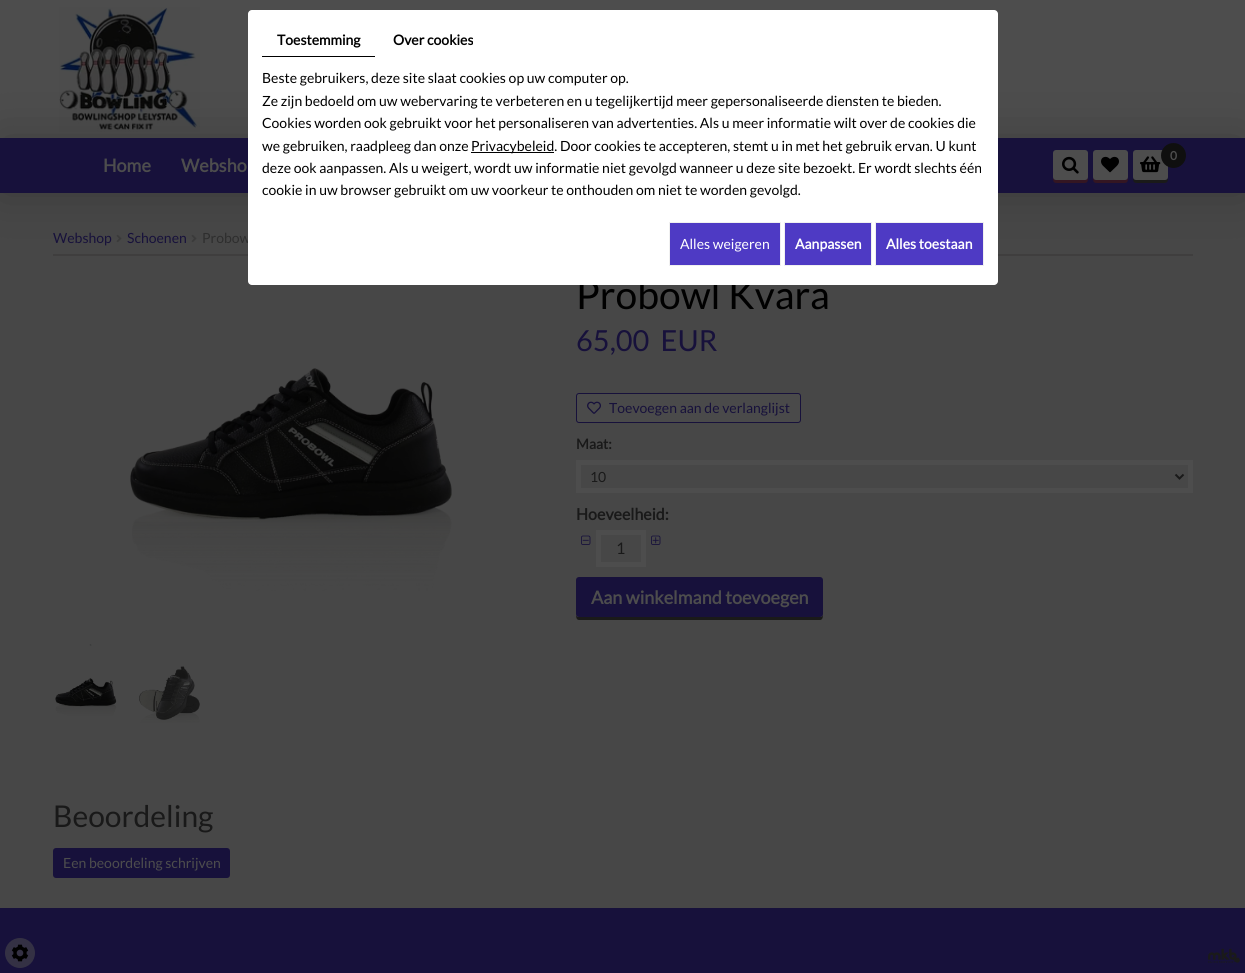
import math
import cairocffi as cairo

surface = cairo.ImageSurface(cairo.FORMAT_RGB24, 1245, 973)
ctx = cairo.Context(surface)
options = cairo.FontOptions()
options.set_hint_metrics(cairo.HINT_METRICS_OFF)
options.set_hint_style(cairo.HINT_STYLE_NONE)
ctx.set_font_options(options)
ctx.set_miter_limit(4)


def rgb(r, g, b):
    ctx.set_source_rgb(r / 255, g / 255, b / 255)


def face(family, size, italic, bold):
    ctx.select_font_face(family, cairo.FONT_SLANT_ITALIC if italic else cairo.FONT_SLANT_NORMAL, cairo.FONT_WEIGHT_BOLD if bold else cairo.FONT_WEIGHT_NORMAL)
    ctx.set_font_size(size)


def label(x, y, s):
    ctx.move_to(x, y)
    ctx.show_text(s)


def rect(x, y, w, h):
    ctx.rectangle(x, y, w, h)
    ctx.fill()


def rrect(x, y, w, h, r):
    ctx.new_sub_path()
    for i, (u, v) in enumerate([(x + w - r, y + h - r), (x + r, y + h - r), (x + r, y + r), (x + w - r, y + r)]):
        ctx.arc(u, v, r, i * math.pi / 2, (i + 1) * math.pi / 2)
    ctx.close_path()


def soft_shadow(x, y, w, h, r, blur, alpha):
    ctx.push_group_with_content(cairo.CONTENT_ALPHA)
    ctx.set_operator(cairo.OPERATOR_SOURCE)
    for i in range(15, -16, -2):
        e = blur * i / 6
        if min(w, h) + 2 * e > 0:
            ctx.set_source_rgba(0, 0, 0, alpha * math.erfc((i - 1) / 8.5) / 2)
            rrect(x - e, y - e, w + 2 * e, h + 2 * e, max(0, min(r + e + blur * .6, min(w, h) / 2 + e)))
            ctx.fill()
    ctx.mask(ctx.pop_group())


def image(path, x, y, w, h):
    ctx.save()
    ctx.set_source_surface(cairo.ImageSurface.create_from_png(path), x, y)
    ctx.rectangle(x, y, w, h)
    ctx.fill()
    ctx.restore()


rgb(71, 71, 71)
ctx.paint()
rgb(77, 77, 77)
rect(0, 0, 1245, 138)
image('image0.png', 59, 7, 141, 125)
rgb(63, 62, 62)
rect(53, 254, 1140, 2)
image('image4.png', 116, 234, 6, 9)
image('image4.png', 191, 234, 6, 9)
rgb(0, 0, 0)
soft_shadow(0, 138, 1245, 55, 0, 25, 0.2)
rgb(23, 17, 59)
rect(0, 138, 1245, 55)
face('Lato', 14, 0, 0)
rgb(46, 46, 46)
label(202, 243, 'Probow')
face('Lato', 39, 0, 0)
rgb(0, 0, 0)
label(576, 309, 'Probowl Kvara')
rgb(255, 255, 255)
rrect(248, 10, 750, 275, 4)
ctx.fill()
rgb(0, 0, 0)
rect(262, 56, 113, 1)
face('Lato', 14, 0, 1)
label(277, 45, 'Toestemming')
label(393, 45, 'Over cookies')
face('Lato', 14, 0, 0)
label(262, 83, 'Beste gebruikers, deze site slaat cookies op uw computer op.')
label(262, 106, 'Ze zijn bedoeld om uw webervaring te verbeteren en u tegelijkertijd meer gepersonaliseerde diensten te bieden.')
label(262, 128, 'Cookies worden ook gebruikt voor het personaliseren van advertenties. Als u meer informatie wilt over de cookies die')
label(262, 151, 'we gebruiken, raadpleeg dan onze')
rect(471, 152, 83, 1)
label(471, 151, 'Privacybeleid. Door cookies te accepteren, stemt u in met het gebruik ervan. U kunt')
label(262, 173, 'deze ook aanpassen. Als u weigert, wordt uw informatie niet gevolgd wanneer u deze site bezoekt. Er wordt slechts één')
label(262, 195, 'cookie in uw browser gebruikt om uw voorkeur te onthouden om niet te worden gevolgd.')
rgb(78, 58, 196)
ctx.rectangle(669.5, 222.5, 111, 43)
ctx.fill_preserve()
rgb(240, 240, 240)
ctx.set_line_width(1)
ctx.stroke()
rgb(255, 255, 255)
label(680, 249, 'Alles weigeren')
rgb(78, 58, 196)
ctx.rectangle(784.5, 222.5, 87, 43)
ctx.fill_preserve()
rgb(240, 240, 240)
ctx.stroke()
face('Lato', 14, 0, 1)
rgb(255, 255, 255)
label(795, 249, 'Aanpassen')
rgb(78, 58, 196)
ctx.rectangle(875.5, 222.5, 108, 43)
ctx.fill_preserve()
rgb(240, 240, 240)
ctx.stroke()
rgb(255, 255, 255)
label(886, 249, 'Alles toestaan')
rgb(52, 22, 34)
ctx.new_path()
ctx.move_to(1053, 177)
ctx.curve_to(1053, 183.5, 1054, 183, 1061, 183)
ctx.line_to(1080, 183)
ctx.curve_to(1087, 183, 1088, 183.5, 1088, 177)
ctx.curve_to(1088, 178.5, 1086.5, 180, 1085, 180)
ctx.line_to(1056, 180)
ctx.curve_to(1054.5, 180, 1053, 178.5, 1053, 177)
ctx.close_path()
ctx.fill()
rgb(77, 77, 77)
rrect(1053, 150, 35, 30, 3)
ctx.fill()
image('image1.png', 1062, 156, 17, 18)
rgb(52, 22, 34)
ctx.new_path()
ctx.move_to(1093, 177)
ctx.curve_to(1093, 183.5, 1094, 183, 1101, 183)
ctx.line_to(1120, 183)
ctx.curve_to(1127, 183, 1128, 183.5, 1128, 177)
ctx.curve_to(1128, 178.5, 1126.5, 180, 1125, 180)
ctx.line_to(1096, 180)
ctx.curve_to(1094.5, 180, 1093, 178.5, 1093, 177)
ctx.close_path()
ctx.fill()
rgb(77, 77, 77)
rrect(1093, 150, 35, 30, 3)
ctx.fill()
image('image2.png', 1101, 156, 18, 17)
rgb(26, 26, 25)
ctx.new_path()
ctx.move_to(1133, 177)
ctx.curve_to(1133, 183.5, 1134, 183, 1141, 183)
ctx.line_to(1160, 183)
ctx.curve_to(1167, 183, 1168, 183.5, 1168, 177)
ctx.curve_to(1168, 178.5, 1166.5, 180, 1165, 180)
ctx.line_to(1136, 180)
ctx.curve_to(1134.5, 180, 1133, 178.5, 1133, 177)
ctx.close_path()
ctx.fill()
rgb(77, 77, 77)
rrect(1133, 150, 35, 30, 3)
ctx.fill()
image('image3.png', 1140, 156, 21, 17)
rgb(15, 15, 15)
ctx.arc(1173.5, 155.5, 12.5, 0, 2 * math.pi)
ctx.fill()
face('Lato', 12, 0, 1)
rgb(77, 77, 77)
label(1170, 160, '0')
face('Lato', 18, 0, 1)
label(103, 172, 'Home')
label(181, 172, 'Websho')
face('Lato', 14, 0, 0)
rgb(23, 17, 59)
label(53, 243, 'Webshop')
label(127, 243, 'Schoenen')
image('image5.png', 89, 368, 363, 278)
image('image6.png', 55, 678, 62, 38)
image('image7.png', 139, 666, 61, 57)
face('Lato', 29, 0, 0)
label(576, 351, '65,00  EUR')
rgb(74, 74, 74)
rrect(576.5, 393.5, 224, 29, 2.5)
ctx.fill_preserve()
rgb(23, 17, 59)
ctx.stroke()
image('image8.png', 587, 401, 14, 13)
face('Lato', 14, 0, 0)
label(609, 413, 'Toevoegen aan de verlanglijst')
face('Lato', 14, 0, 1)
rgb(25, 25, 25)
label(576, 449, 'Maat:')
ctx.rectangle(578.5, 462.5, 612, 28)
rgb(77, 77, 77)
ctx.set_line_width(5)
ctx.stroke()
ctx.new_path()
ctx.move_to(1175.5, 474.5)
ctx.line_to(1179.5, 478.5)
ctx.line_to(1183.5, 474.5)
rgb(25, 25, 25)
ctx.set_line_width(2)
ctx.stroke()
face('Lato', 14, 0, 0)
label(590, 482, '10')
face('Lato', 16, 0, 1)
label(576, 520, 'Hoeveelheid:')
image('image9.png', 581, 535, 10, 10)
image('image10.png', 651, 535, 10, 10)
ctx.rectangle(598.5, 532.5, 45, 32)
rgb(77, 77, 77)
ctx.set_line_width(5)
ctx.stroke()
face('Lato', 16, 0, 0)
rgb(25, 25, 25)
label(616, 554, '1')
rgb(26, 26, 25)
ctx.new_path()
ctx.move_to(576, 614)
ctx.curve_to(576, 616, 576, 620, 579, 620)
ctx.line_to(820, 620)
ctx.curve_to(823, 620, 823, 616, 823, 614)
ctx.curve_to(823, 616, 822, 617, 820, 617)
ctx.line_to(579, 617)
ctx.curve_to(577, 617, 576, 616, 576, 614)
ctx.close_path()
ctx.fill()
rgb(23, 17, 59)
rrect(576, 577, 247, 40, 3)
ctx.fill()
face('Lato', 18, 0, 1)
rgb(77, 77, 77)
label(591, 604, 'Aan winkelmand toevoegen')
face('Lato', 30, 0, 0)
rgb(25, 25, 25)
label(53, 827, 'Beoordeling')
rgb(23, 17, 59)
rrect(53, 848, 177, 30, 3)
ctx.fill()
face('Lato', 14, 0, 0)
rgb(77, 77, 77)
label(63, 868, 'Een beoordeling schrijven')
rgb(23, 17, 59)
rect(0, 908, 1245, 65)
rgb(52, 49, 68)
ctx.new_path()
ctx.arc(20, 953, 15, 0, 2 * math.pi)
ctx.fill()
image('image11.png', 11, 944, 18, 18)
image('image12.png', 1208, 948, 32, 15)
surface.write_to_png('render.png')
